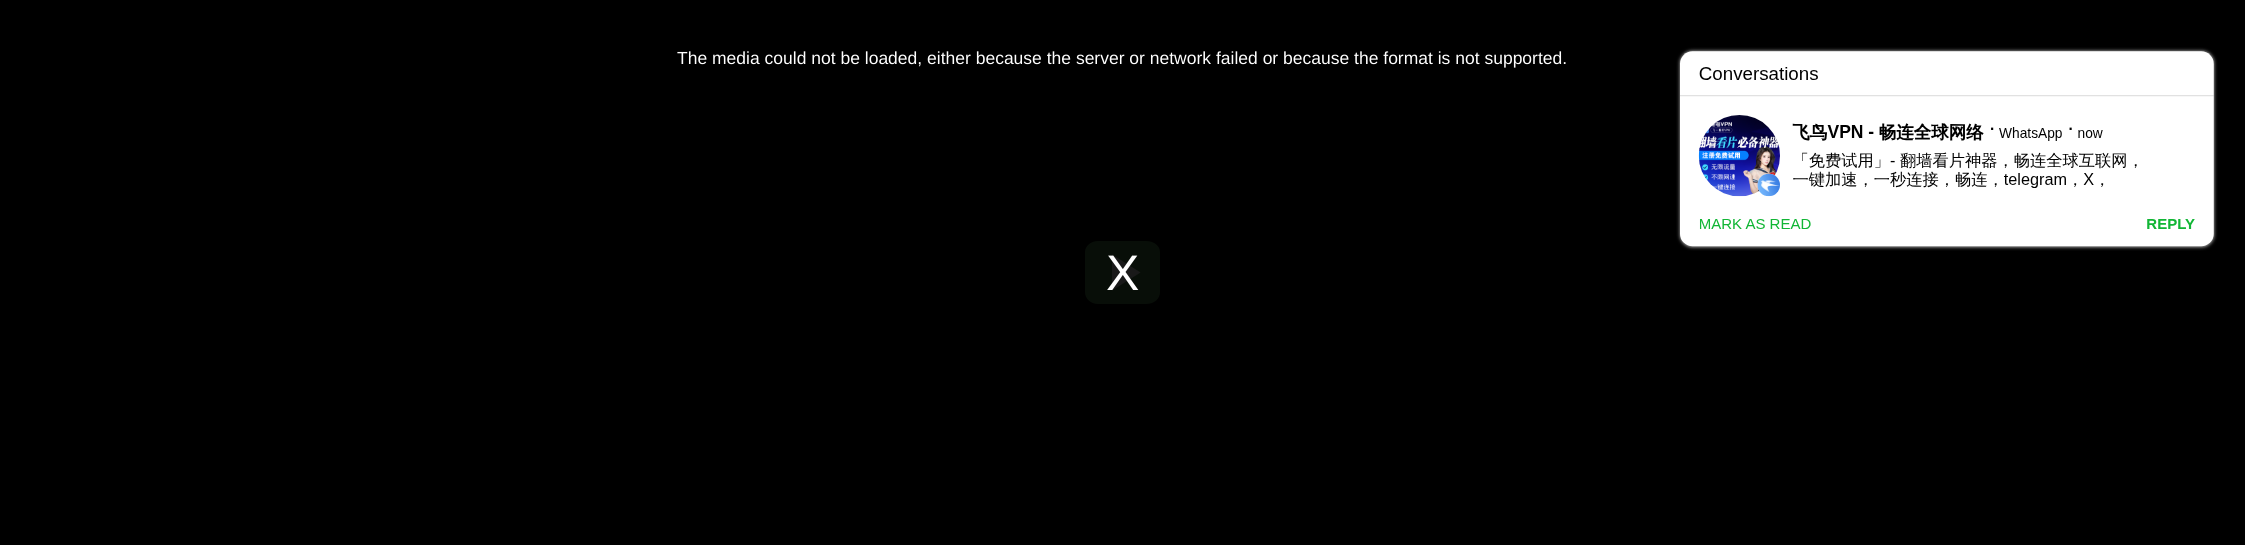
import math
import cairocffi as cairo

surface = cairo.ImageSurface(cairo.FORMAT_RGB24, 2245, 545)
ctx = cairo.Context(surface)
options = cairo.FontOptions()
options.set_hint_metrics(cairo.HINT_METRICS_OFF)
options.set_hint_style(cairo.HINT_STYLE_NONE)
ctx.set_font_options(options)
ctx.set_miter_limit(4)


def rgb(r, g, b):
    ctx.set_source_rgb(r / 255, g / 255, b / 255)


def face(family, size, italic, bold):
    ctx.select_font_face(family, cairo.FONT_SLANT_ITALIC if italic else cairo.FONT_SLANT_NORMAL, cairo.FONT_WEIGHT_BOLD if bold else cairo.FONT_WEIGHT_NORMAL)
    ctx.set_font_size(size)


def label(x, y, s):
    ctx.move_to(x, y)
    ctx.show_text(s)


def image(path, x, y, w, h):
    ctx.save()
    ctx.set_source_surface(cairo.ImageSurface.create_from_png(path), x, y)
    ctx.rectangle(x, y, w, h)
    ctx.fill()
    ctx.restore()


rgb(0, 0, 0)
ctx.paint()
face('Liberation Sans', 17.5, 0, 0)
rgb(255, 255, 255)
label(677, 64, 'The media could not be loaded, either because the server or network failed or because the format is not supported.')
rgb(8, 14, 8)
ctx.new_path()
ctx.move_to(1098, 241)
ctx.line_to(1146, 241)
ctx.curve_to(1154, 241, 1160, 246, 1160, 252)
ctx.line_to(1160, 292)
ctx.curve_to(1160, 299, 1154, 304, 1146, 304)
ctx.line_to(1098, 304)
ctx.curve_to(1091, 304, 1085, 299, 1085, 292)
ctx.line_to(1085, 252)
ctx.curve_to(1085, 246, 1091, 241, 1098, 241)
ctx.close_path()
ctx.fill()
rgb(25, 25, 25)
ctx.new_path()
ctx.move_to(1112, 254.5)
ctx.line_to(1112, 290.5)
ctx.line_to(1140.5, 272.5)
ctx.close_path()
ctx.fill()
face('Liberation Sans', 50, 0, 0)
rgb(255, 255, 255)
label(1106, 290, 'X')
image('image0.png', 1676, 47, 542, 204)
surface.write_to_png('render.png')
